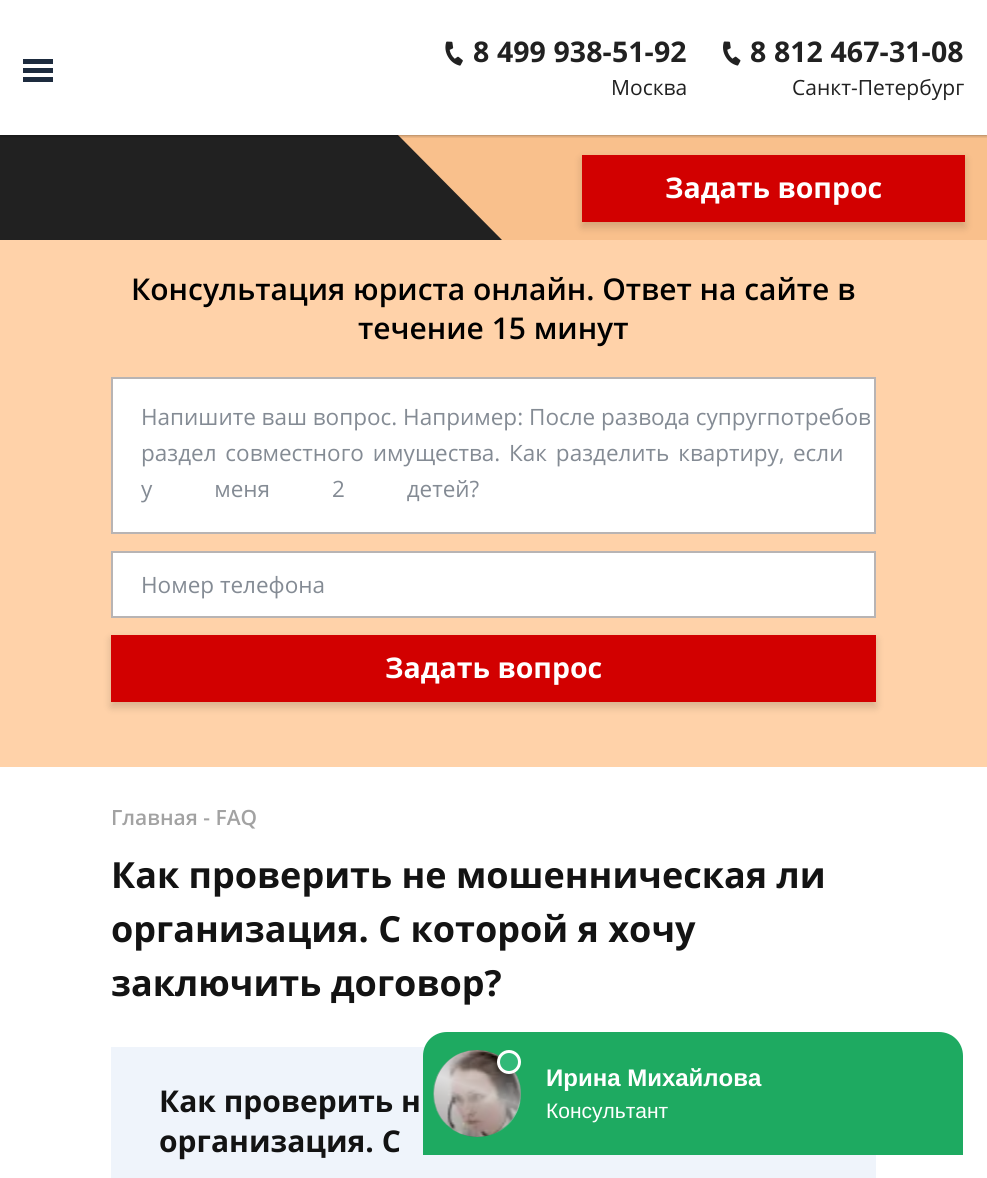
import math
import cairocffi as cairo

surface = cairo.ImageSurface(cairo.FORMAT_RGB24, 987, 1178)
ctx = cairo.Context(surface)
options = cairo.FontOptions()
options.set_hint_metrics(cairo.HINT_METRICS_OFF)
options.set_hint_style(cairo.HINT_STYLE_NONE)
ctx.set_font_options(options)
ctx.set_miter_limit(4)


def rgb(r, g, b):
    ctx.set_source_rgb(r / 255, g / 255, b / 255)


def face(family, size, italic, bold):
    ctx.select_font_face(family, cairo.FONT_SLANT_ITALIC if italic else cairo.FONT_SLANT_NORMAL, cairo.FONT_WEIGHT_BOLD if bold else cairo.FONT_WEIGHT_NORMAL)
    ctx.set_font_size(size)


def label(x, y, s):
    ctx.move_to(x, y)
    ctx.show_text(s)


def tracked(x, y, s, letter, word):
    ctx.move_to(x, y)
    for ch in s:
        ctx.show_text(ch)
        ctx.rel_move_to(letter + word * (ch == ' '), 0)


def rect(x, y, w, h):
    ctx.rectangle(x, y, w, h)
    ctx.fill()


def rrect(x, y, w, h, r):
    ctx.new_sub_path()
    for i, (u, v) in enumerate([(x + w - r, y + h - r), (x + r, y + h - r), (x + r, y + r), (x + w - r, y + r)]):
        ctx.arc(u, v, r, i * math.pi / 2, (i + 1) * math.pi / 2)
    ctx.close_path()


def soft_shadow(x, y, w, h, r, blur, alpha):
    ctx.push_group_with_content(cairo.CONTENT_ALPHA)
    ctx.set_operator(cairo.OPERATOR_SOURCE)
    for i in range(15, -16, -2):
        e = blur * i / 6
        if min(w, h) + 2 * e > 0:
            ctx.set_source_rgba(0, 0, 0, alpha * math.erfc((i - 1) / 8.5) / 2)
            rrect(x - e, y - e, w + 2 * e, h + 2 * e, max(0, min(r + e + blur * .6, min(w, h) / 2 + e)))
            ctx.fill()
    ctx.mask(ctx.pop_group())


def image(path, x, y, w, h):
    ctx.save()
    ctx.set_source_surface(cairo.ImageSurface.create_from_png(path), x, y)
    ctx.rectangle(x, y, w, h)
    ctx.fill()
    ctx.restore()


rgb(255, 255, 255)
ctx.paint()
rgb(249, 192, 140)
rect(398, 135, 589, 105)
rgb(33, 33, 33)
rect(0, 135, 398, 105)
ctx.new_path()
ctx.move_to(398, 240)
ctx.line_to(398, 135)
ctx.line_to(502, 240)
ctx.close_path()
ctx.fill()
ctx.save()
ctx.rectangle(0, 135, 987, 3)
ctx.clip()
rgb(0, 0, 0)
soft_shadow(0, 0, 987, 135, 0, 2, 0.5)
ctx.restore()
rgb(29, 43, 62)
rect(23, 59, 30, 5)
rect(23, 68, 30, 5)
rect(23, 77, 30, 5)
image('image0.png', 445, 41, 18, 25)
face('Open Sans', 28.5, 0, 1)
rgb(33, 33, 33)
tracked(473, 62, '8 499 938-51-92', 0.1, 0)
face('Open Sans', 21, 0, 0)
label(611, 95, 'Москва')
image('image1.png', 723, 41, 18, 25)
face('Open Sans', 28.5, 0, 1)
tracked(750, 62, '8 812 467-31-08', 0.1, 0)
face('Open Sans', 21, 0, 0)
label(792, 95, 'Санкт-Петербург')
rgb(255, 210, 169)
rect(0, 240, 987, 527)
rgb(0, 0, 0)
soft_shadow(582, 159, 383, 68, 0, 4.5, 0.16)
rgb(210, 0, 0)
rect(582, 155, 383, 67)
face('Open Sans', 28.5, 0, 1)
rgb(255, 255, 255)
label(665, 198, 'Задать вопрос')
face('Open Sans SemiBold', 30, 0, 0)
rgb(0, 0, 0)
label(131, 300, 'Консультация юриста онлайн. Ответ на сайте в')
label(358, 339, 'течение 15 минут')
rgb(255, 255, 255)
ctx.rectangle(112, 378, 763, 155)
ctx.fill_preserve()
rgb(184, 180, 180)
ctx.stroke()
face('Open Sans', 22.5, 0, 0)
rgb(132, 139, 148)
label(141, 425, 'Напишите ваш вопрос. Например: После развода супругпотребов')
tracked(141, 461, 'раздел совместного имущества. Как разделить квартиру,', 0, 3)
label(793, 461, 'если')
tracked(141, 497, 'у меня 2 детей?', 0, 56)
rgb(255, 255, 255)
ctx.rectangle(112, 552, 763, 65)
ctx.fill_preserve()
rgb(184, 180, 180)
ctx.stroke()
rgb(132, 139, 148)
label(141, 593, 'Номер телефона')
rgb(0, 0, 0)
soft_shadow(111, 639, 765, 68, 0, 4.5, 0.16)
rgb(210, 0, 0)
rect(111, 635, 765, 67)
face('Open Sans', 28.5, 0, 1)
rgb(255, 255, 255)
label(385, 678, 'Задать вопрос')
face('Open Sans SemiBold', 21, 0, 0)
rgb(162, 162, 162)
label(111, 825, 'Главная - FAQ')
face('Open Sans', 36, 0, 1)
rgb(19, 19, 19)
label(111, 888, 'Как проверить не мошенническая ли')
label(111, 942, 'организация. С которой я хочу')
label(111, 996, 'заключить договор?')
rgb(239, 244, 251)
rect(111, 1047, 765, 131)
face('Open Sans', 30, 0, 1)
rgb(19, 19, 19)
label(159, 1112, 'Как проверить н')
label(159, 1152, 'организация. С')
rgb(30, 170, 97)
ctx.new_path()
ctx.move_to(447, 1032)
ctx.line_to(939, 1032)
ctx.curve_to(952.5, 1032, 963, 1042.5, 963, 1056)
ctx.line_to(963, 1155)
ctx.line_to(423, 1155)
ctx.line_to(423, 1056)
ctx.curve_to(423, 1042.5, 433.5, 1032, 447, 1032)
ctx.close_path()
ctx.fill()
rgb(23, 128, 73)
ctx.arc(477.5, 1093.5, 43.5, 0, 2 * math.pi)
ctx.fill()
image('image2.png', 433, 1050, 88, 87)
gradient = cairo.LinearGradient(492, 1058, 462, 1140)
gradient.add_color_stop_rgba(0, 1, 1, 1, 0)
gradient.add_color_stop_rgba(0.4, 1, 1, 1, 0.6)
gradient.add_color_stop_rgba(0.6, 1, 1, 1, 0.36)
gradient.add_color_stop_rgba(1, 1, 1, 1, 0)
ctx.set_source(gradient)
ctx.new_path()
ctx.move_to(471, 1050)
ctx.line_to(510, 1065)
ctx.curve_to(517, 1072, 521, 1082, 521, 1094)
ctx.curve_to(521, 1118, 502, 1137, 478, 1137)
ctx.curve_to(453, 1137, 434, 1118, 434, 1094)
ctx.curve_to(434, 1072, 450, 1053, 471, 1050)
ctx.close_path()
ctx.fill()
rgb(49, 185, 120)
ctx.arc(509, 1062, 10.5, 0, 2 * math.pi)
ctx.fill_preserve()
rgb(255, 255, 255)
ctx.set_line_width(3)
ctx.stroke()
face('Liberation Sans', 24, 0, 1)
label(546, 1086, 'Ирина Михайлова')
face('Liberation Sans', 21, 0, 0)
label(546, 1118, 'Консультант')
surface.write_to_png('render.png')
